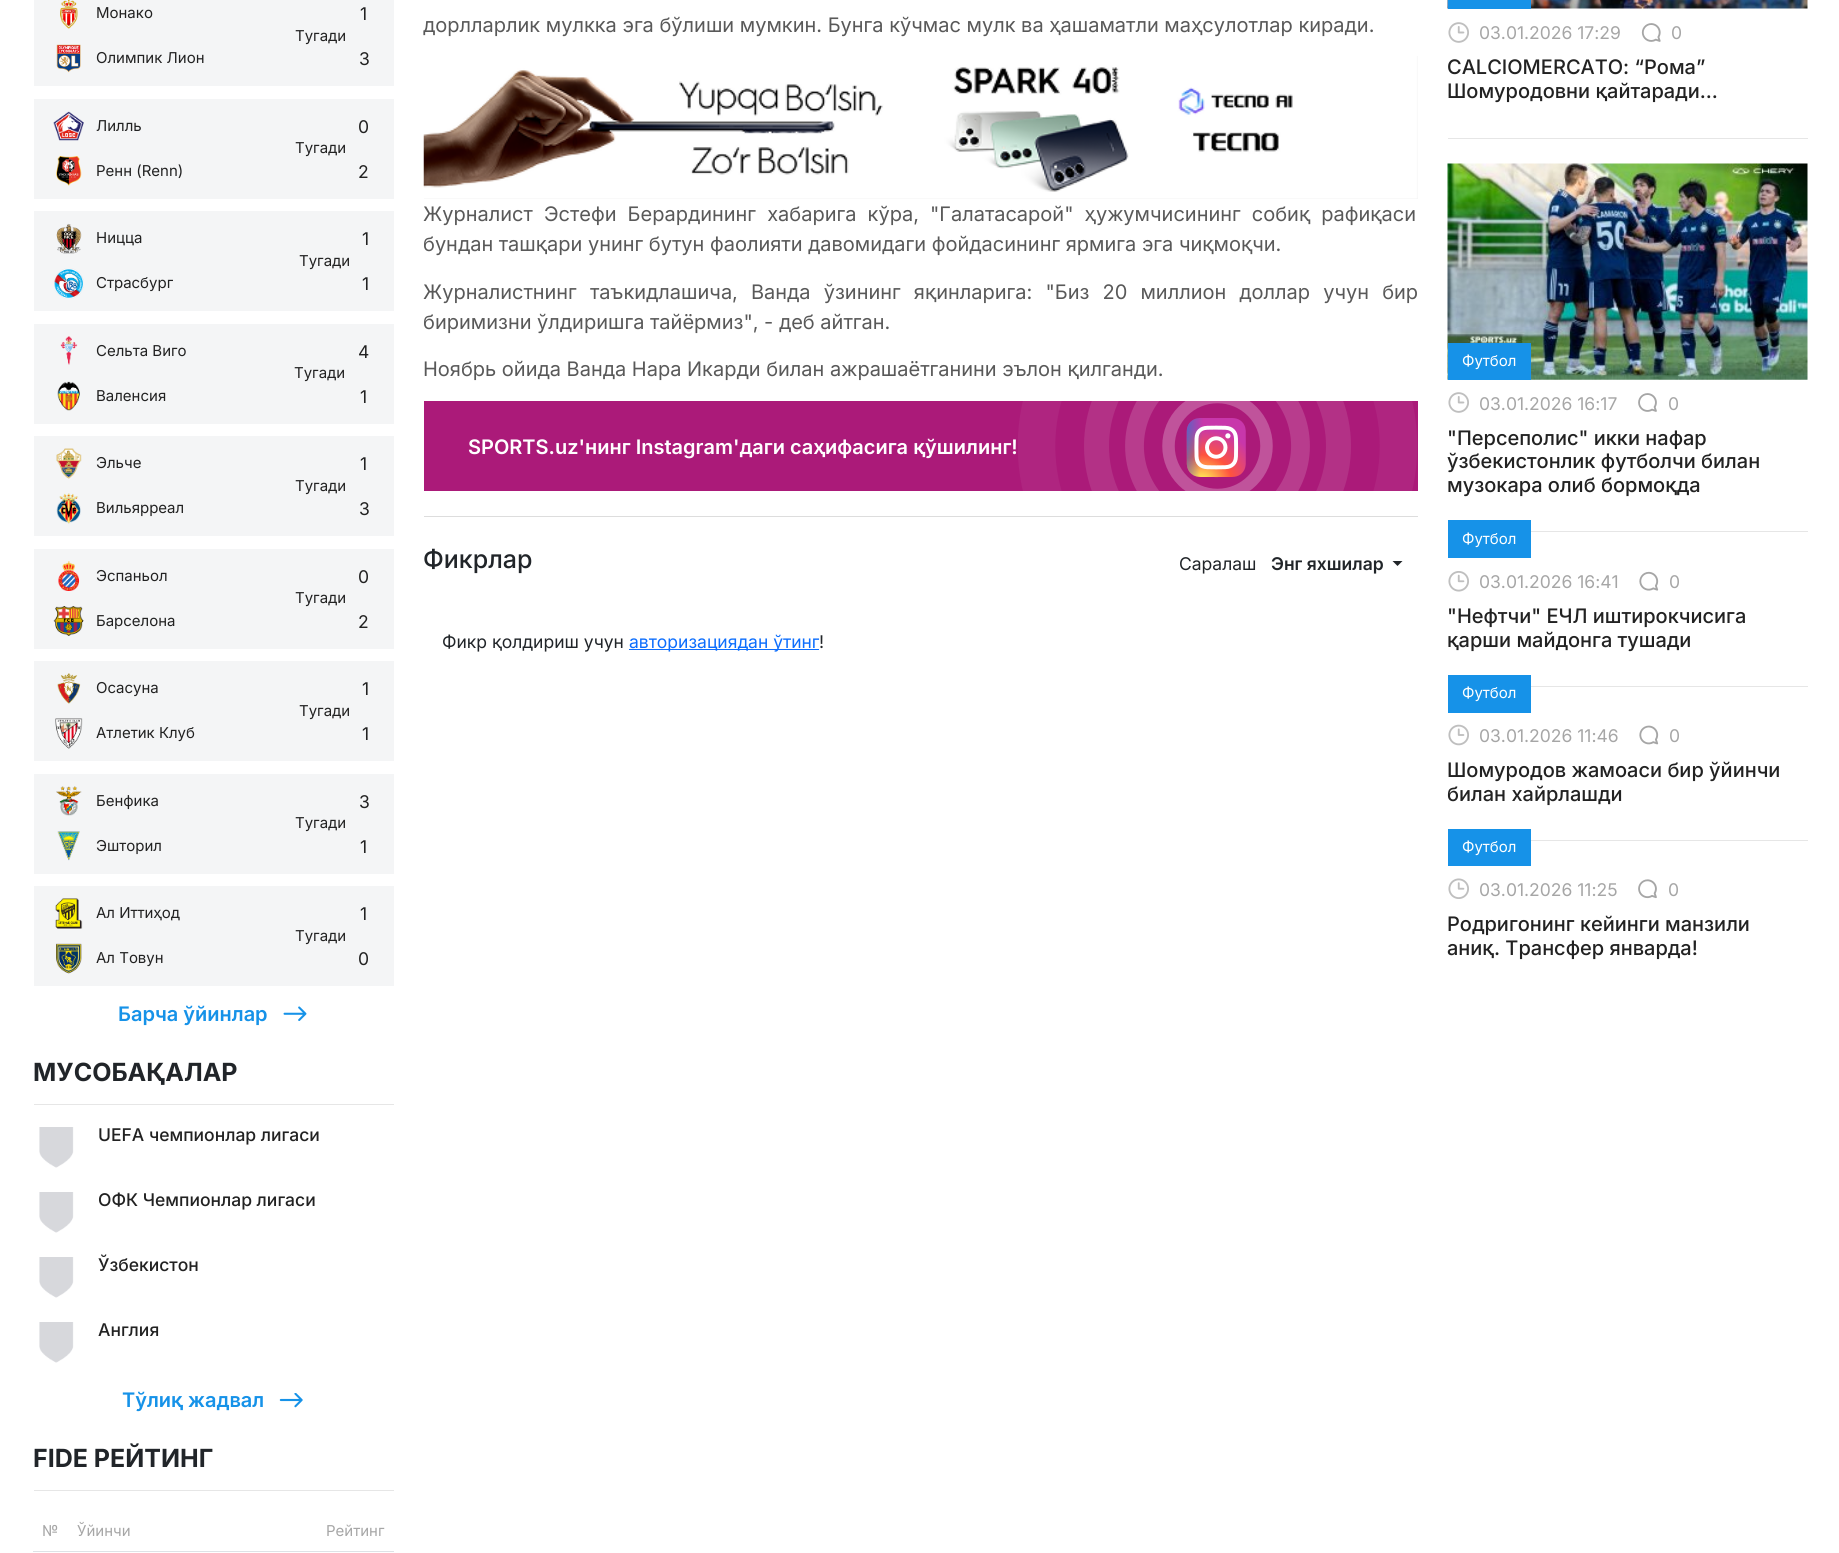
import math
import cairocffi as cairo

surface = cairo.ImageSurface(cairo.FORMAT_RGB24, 1839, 1553)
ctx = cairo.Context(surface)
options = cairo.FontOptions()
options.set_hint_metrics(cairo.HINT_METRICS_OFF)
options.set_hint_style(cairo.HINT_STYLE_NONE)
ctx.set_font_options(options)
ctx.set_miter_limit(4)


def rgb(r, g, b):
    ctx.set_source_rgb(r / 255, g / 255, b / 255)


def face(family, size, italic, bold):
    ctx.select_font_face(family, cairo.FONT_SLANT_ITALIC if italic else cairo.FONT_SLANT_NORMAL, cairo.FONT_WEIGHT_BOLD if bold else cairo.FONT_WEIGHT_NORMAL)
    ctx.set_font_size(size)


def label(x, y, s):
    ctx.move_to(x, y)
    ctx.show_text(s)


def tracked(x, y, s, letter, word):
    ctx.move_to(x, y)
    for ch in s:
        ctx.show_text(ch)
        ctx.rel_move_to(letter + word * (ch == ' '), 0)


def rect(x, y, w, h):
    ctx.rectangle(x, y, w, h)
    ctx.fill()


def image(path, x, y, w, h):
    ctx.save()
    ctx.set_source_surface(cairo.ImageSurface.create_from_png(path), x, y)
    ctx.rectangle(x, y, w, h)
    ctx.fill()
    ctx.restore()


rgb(255, 255, 255)
ctx.paint()
rgb(244, 245, 246)
rect(34, 0, 360, 86)
image('image0.png', 60, 0, 18, 29)
face('Inter', 15, 0, 0)
rgb(34, 34, 34)
label(96, 18, 'Монако')
image('image1.png', 56, 44, 25, 29)
label(96, 63, 'Олимпик Лион')
label(295, 41, 'Тугади')
face('Inter', 17.5, 0, 0)
label(360, 20, '1')
label(359, 65, '3')
rgb(244, 245, 246)
rect(34, 99, 360, 100)
image('image2.png', 53, 111, 31, 30)
face('Inter', 15, 0, 0)
rgb(34, 34, 34)
label(96, 131, 'Лилль')
image('image3.png', 56, 156, 26, 30)
label(96, 176, 'Ренн (Renn)')
label(295, 153, 'Тугади')
face('Inter', 17.5, 0, 0)
label(358, 133, '0')
label(358, 178, '2')
rgb(244, 245, 246)
rect(34, 211, 360, 100)
image('image4.png', 56, 223, 26, 31)
face('Inter', 15, 0, 0)
rgb(34, 34, 34)
label(96, 243, 'Ницца')
image('image5.png', 54, 268, 30, 31)
label(96, 288, 'Страсбург')
label(299, 266, 'Тугади')
face('Inter', 17.5, 0, 0)
label(362, 245, '1')
label(362, 290, '1')
rgb(244, 245, 246)
rect(34, 324, 360, 100)
image('image6.png', 60, 336, 18, 29)
face('Inter', 15, 0, 0)
rgb(34, 34, 34)
label(96, 356, 'Сельта Виго')
image('image7.png', 57, 381, 23, 30)
label(96, 401, 'Валенсия')
label(294, 378, 'Тугади')
face('Inter', 17.5, 0, 0)
label(358, 358, '4')
label(360, 403, '1')
rgb(244, 245, 246)
rect(34, 436, 360, 100)
image('image8.png', 56, 448, 26, 31)
face('Inter', 15, 0, 0)
rgb(34, 34, 34)
label(96, 468, 'Эльче')
image('image9.png', 56, 493, 25, 31)
label(96, 513, 'Вильярреал')
label(295, 491, 'Тугади')
face('Inter', 17.5, 0, 0)
label(360, 470, '1')
label(359, 515, '3')
rgb(244, 245, 246)
rect(34, 549, 360, 100)
image('image10.png', 58, 561, 22, 30)
face('Inter', 15, 0, 0)
rgb(34, 34, 34)
label(96, 581, 'Эспаньол')
image('image11.png', 53, 606, 31, 30)
label(96, 626, 'Барселона')
label(295, 603, 'Тугади')
face('Inter', 17.5, 0, 0)
label(358, 583, '0')
label(358, 628, '2')
rgb(244, 245, 246)
rect(34, 661, 360, 100)
image('image12.png', 57, 673, 24, 31)
face('Inter', 15, 0, 0)
rgb(34, 34, 34)
label(96, 693, 'Осасуна')
image('image13.png', 55, 718, 28, 31)
label(96, 738, 'Атлетик Клуб')
label(299, 716, 'Тугади')
face('Inter', 17.5, 0, 0)
label(362, 695, '1')
label(362, 740, '1')
rgb(244, 245, 246)
rect(34, 774, 360, 100)
image('image14.png', 56, 786, 26, 30)
face('Inter', 15, 0, 0)
rgb(34, 34, 34)
label(96, 806, 'Бенфика')
image('image15.png', 57, 831, 23, 30)
label(96, 851, 'Эшторил')
label(295, 828, 'Тугади')
face('Inter', 17.5, 0, 0)
label(359, 808, '3')
label(360, 853, '1')
rgb(244, 245, 246)
rect(34, 886, 360, 100)
image('image16.png', 55, 898, 28, 31)
face('Inter', 15, 0, 0)
rgb(34, 34, 34)
label(96, 918, 'Ал Иттиҳод')
image('image17.png', 56, 943, 26, 31)
label(96, 963, 'Ал Товун')
label(295, 941, 'Тугади')
face('Inter', 17.5, 0, 0)
label(360, 920, '1')
label(358, 965, '0')
face('Inter SemiBold', 20, 0, 0)
rgb(22, 146, 232)
label(118, 1021, 'Барча ўйинлар')
image('image18.png', 283, 1006, 24, 15)
rgb(230, 230, 230)
rect(34, 1104, 360, 1)
face('Inter', 25, 0, 1)
rgb(33, 37, 41)
label(33, 1081, 'МУСОБАҚАЛАР')
image('image19.png', 39, 1127, 35, 41)
face('Inter Medium', 17.5, 0, 0)
rgb(34, 34, 34)
label(98, 1141, 'UEFA чемпионлар лигаси')
image('image19.png', 39, 1192, 35, 41)
label(98, 1206, 'ОФК Чемпионлар лигаси')
image('image19.png', 39, 1257, 35, 41)
label(98, 1271, 'Ўзбекистон')
image('image19.png', 39, 1322, 35, 41)
label(98, 1336, 'Англия')
face('Inter SemiBold', 20, 0, 0)
rgb(22, 146, 232)
label(122, 1407, 'Тўлиқ жадвал')
image('image20.png', 279, 1393, 24, 15)
rgb(230, 230, 230)
rect(34, 1490, 360, 1)
face('Inter', 25, 0, 1)
rgb(33, 37, 41)
label(33, 1467, 'FIDE РЕЙТИНГ')
face('Inter', 15, 0, 0)
rgb(166, 166, 166)
label(42, 1536, '№')
label(77, 1536, 'Ўйинчи')
rgb(222, 226, 230)
rect(33, 1551, 361, 1)
rgb(166, 166, 166)
label(326, 1536, 'Рейтинг')
face('Inter', 20, 0, 0)
rgb(89, 89, 89)
label(423, 32, 'дорлларлик мулкка эга бўлиши мумкин. Бунга кўчмас мулк ва ҳашаматли маҳсулотлар киради.')
rgb(243, 243, 243)
rect(424, 56, 994, 143)
image('image21.png', 423, 56, 995, 143)
rgb(89, 89, 89)
tracked(423, 221, 'Журналист Эстефи Берардининг хабарига кўра, "Галатасарой" ҳужумчисининг собиқ рафиқаси', 0, 5.5)
label(423, 251, 'бундан ташқари унинг бутун фаолияти давомидаги фойдасининг ярмига эга чиқмоқчи.')
tracked(423, 299, 'Журналистнинг таъкидлашича, Ванда ўзининг яқинларига: "Биз 20 миллион доллар учун бир', 0, 7.5)
label(423, 329, 'биримизни ўлдиришга тайёрмиз", - деб айтган.')
label(423, 376, 'Ноябрь ойида Ванда Нара Икарди билан ажрашаётганини эълон қилганди.')
rgb(171, 26, 121)
rect(424, 401, 994, 90)
image('image22.png', 1186, 418, 60, 60)
ctx.save()
ctx.rectangle(1018, 401, 400, 90)
ctx.clip()
ctx.arc(1217.5, 446, 49, 0, 2 * math.pi)
rgb(192, 83, 155)
ctx.set_line_width(12.5)
ctx.stroke()
ctx.arc(1217.5, 446, 83, 0, 2 * math.pi)
rgb(184, 60, 141)
ctx.set_line_width(18.8)
ctx.stroke()
ctx.arc(1217.5, 446, 121, 0, 2 * math.pi)
rgb(179, 49, 134)
ctx.set_line_width(25)
ctx.stroke()
ctx.arc(1217.5, 446, 181, 0, 2 * math.pi)
rgb(175, 37, 128)
ctx.set_line_width(37.5)
ctx.stroke()
ctx.restore()
face('Inter SemiBold', 20, 0, 0)
rgb(255, 255, 255)
label(468, 454, 'SPORTS.uz\'нинг Instagram\'даги саҳифасига қўшилинг!')
rgb(221, 221, 221)
rect(424, 516, 994, 1)
face('Inter Medium', 25, 0, 0)
rgb(33, 37, 41)
label(423, 568, 'Фикрлар')
face('Inter', 17.5, 0, 0)
label(1179, 570, 'Саралаш')
face('Inter SemiBold', 17.5, 0, 0)
label(1271, 570, 'Энг яхшилар')
ctx.new_path()
ctx.move_to(1392.5, 561)
ctx.line_to(1402.5, 561)
ctx.line_to(1397.5, 566)
ctx.close_path()
ctx.fill()
face('Inter', 17.5, 0, 0)
label(442, 648, 'Фикр қолдириш учун')
rgb(13, 110, 253)
rect(629, 649, 190, 1)
label(629, 648, 'авторизациядан ўтинг')
rgb(33, 37, 41)
label(819, 648, '!')
rgb(230, 230, 230)
rect(1448, 138, 360, 1)
image('image23.png', 1447, 0, 361, 9)
rgb(22, 146, 232)
rect(1448, 0, 83, 9)
image('image24.png', 1448, 22, 21, 21)
rgb(166, 166, 166)
label(1479, 39, '03.01.2026 17:29')
image('image25.png', 1641, 23, 20, 19)
label(1671, 39, '0')
face('Inter Medium', 20, 0, 0)
rgb(34, 34, 34)
label(1447, 74, 'CALCIOMERCATO: “Рома”')
label(1447, 98, 'Шомуродовни қайтаради...')
rgb(230, 230, 230)
rect(1531, 531, 277, 1)
image('image26.png', 1447, 163, 361, 217)
rgb(22, 146, 232)
rect(1448, 343, 83, 37)
face('Inter', 15, 0, 0)
rgb(255, 255, 255)
label(1462, 366, 'Футбол')
image('image24.png', 1448, 392, 21, 21)
face('Inter', 17.5, 0, 0)
rgb(166, 166, 166)
label(1479, 410, '03.01.2026 16:17')
image('image27.png', 1638, 393, 19, 19)
label(1668, 410, '0')
face('Inter Medium', 20, 0, 0)
rgb(34, 34, 34)
label(1447, 445, '"Персеполис" икки нафар')
label(1447, 468, 'ўзбекистонлик футболчи билан')
label(1447, 492, 'музокара олиб бормоқда')
rgb(230, 230, 230)
rect(1531, 686, 277, 1)
rgb(22, 146, 232)
rect(1448, 520, 83, 38)
face('Inter', 15, 0, 0)
rgb(255, 255, 255)
label(1462, 544, 'Футбол')
image('image28.png', 1448, 571, 21, 21)
face('Inter', 17.5, 0, 0)
rgb(166, 166, 166)
label(1479, 588, '03.01.2026 16:41')
image('image29.png', 1639, 571, 20, 20)
label(1669, 588, '0')
face('Inter Medium', 20, 0, 0)
rgb(34, 34, 34)
label(1447, 623, '"Нефтчи" ЕЧЛ иштирокчисига')
label(1447, 647, 'қарши майдонга тушади')
rgb(230, 230, 230)
rect(1531, 840, 277, 1)
rgb(22, 146, 232)
rect(1448, 675, 83, 38)
face('Inter', 15, 0, 0)
rgb(255, 255, 255)
label(1462, 698, 'Футбол')
image('image30.png', 1448, 724, 21, 22)
face('Inter', 17.5, 0, 0)
rgb(166, 166, 166)
label(1479, 742, '03.01.2026 11:46')
image('image31.png', 1639, 725, 20, 20)
label(1669, 742, '0')
face('Inter Medium', 20, 0, 0)
rgb(34, 34, 34)
label(1447, 777, 'Шомуродов жамоаси бир ўйинчи')
label(1447, 801, 'билан хайрлашди')
rgb(22, 146, 232)
rect(1448, 829, 83, 37)
face('Inter', 15, 0, 0)
rgb(255, 255, 255)
label(1462, 852, 'Футбол')
image('image32.png', 1448, 878, 21, 21)
face('Inter', 17.5, 0, 0)
rgb(166, 166, 166)
label(1479, 896, '03.01.2026 11:25')
image('image33.png', 1638, 879, 19, 20)
label(1668, 896, '0')
face('Inter Medium', 20, 0, 0)
rgb(34, 34, 34)
label(1447, 931, 'Родригонинг кейинги манзили')
label(1447, 955, 'аниқ. Трансфер январда!')
surface.write_to_png('render.png')
